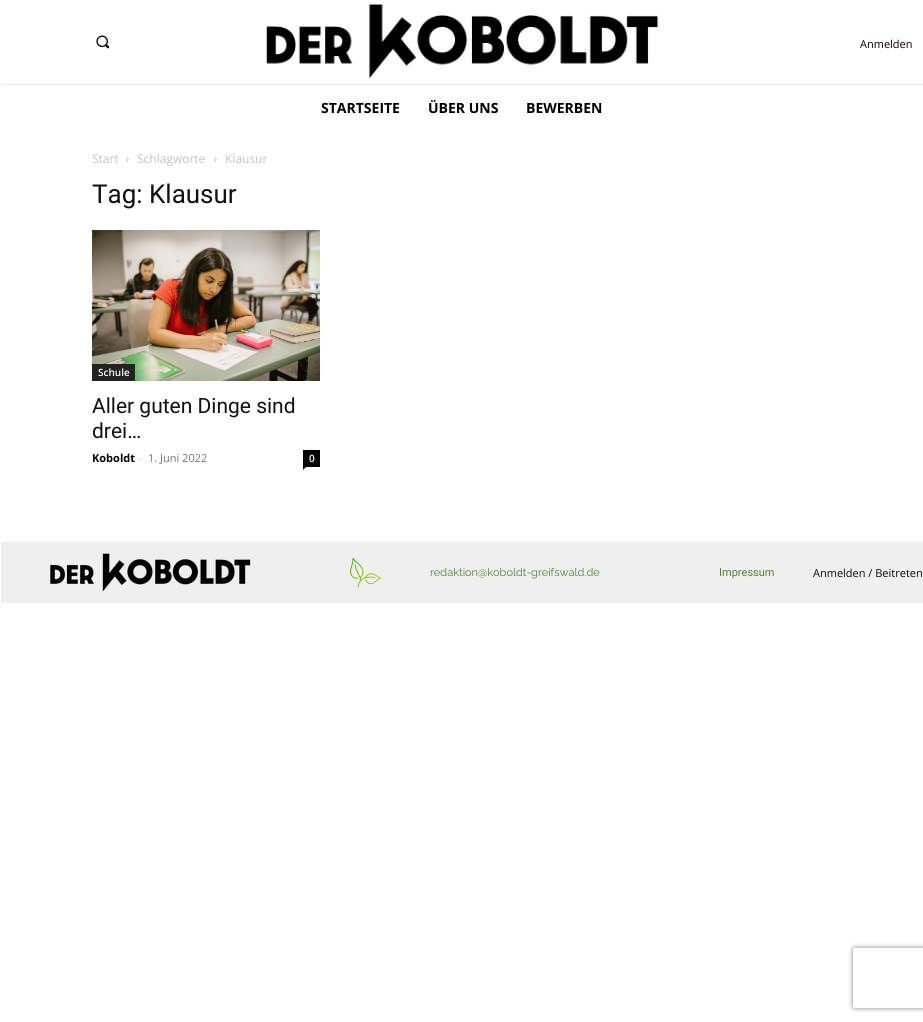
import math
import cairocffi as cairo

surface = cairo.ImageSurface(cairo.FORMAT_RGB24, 923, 1022)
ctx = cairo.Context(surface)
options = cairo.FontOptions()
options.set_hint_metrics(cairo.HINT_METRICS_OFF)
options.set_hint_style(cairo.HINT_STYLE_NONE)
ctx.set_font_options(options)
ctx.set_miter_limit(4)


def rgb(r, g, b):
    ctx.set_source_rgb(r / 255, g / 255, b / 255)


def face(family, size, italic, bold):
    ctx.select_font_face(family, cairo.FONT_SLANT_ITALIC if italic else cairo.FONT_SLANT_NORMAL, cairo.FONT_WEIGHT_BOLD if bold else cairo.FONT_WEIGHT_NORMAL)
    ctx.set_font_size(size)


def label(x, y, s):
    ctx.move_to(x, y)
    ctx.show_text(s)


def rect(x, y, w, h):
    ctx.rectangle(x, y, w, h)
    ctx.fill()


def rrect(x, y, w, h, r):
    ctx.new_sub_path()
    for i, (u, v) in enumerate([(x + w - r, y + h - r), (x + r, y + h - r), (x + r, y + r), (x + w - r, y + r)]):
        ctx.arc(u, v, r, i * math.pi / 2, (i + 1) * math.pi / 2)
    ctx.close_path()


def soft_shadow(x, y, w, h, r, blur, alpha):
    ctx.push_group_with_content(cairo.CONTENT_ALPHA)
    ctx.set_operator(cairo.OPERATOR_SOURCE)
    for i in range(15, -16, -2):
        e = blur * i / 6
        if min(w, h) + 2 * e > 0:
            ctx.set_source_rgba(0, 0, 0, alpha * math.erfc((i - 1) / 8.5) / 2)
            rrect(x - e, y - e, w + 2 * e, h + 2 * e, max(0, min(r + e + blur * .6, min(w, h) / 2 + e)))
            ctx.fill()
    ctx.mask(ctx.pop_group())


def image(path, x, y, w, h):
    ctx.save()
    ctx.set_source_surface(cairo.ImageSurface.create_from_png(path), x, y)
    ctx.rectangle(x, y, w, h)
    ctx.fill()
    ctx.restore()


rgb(255, 255, 255)
ctx.paint()
image('image0.png', 96, 35, 14, 14)
image('image1.png', 266, 3, 393, 76)
face('Open Sans', 11, 0, 0)
rgb(10, 2, 2)
label(860, 48, 'Anmelden')
rgb(234, 234, 234)
rect(1, 84, 922, 1)
face('Open Sans', 14, 0, 1)
rgb(0, 0, 0)
label(321, 113, 'STARTSEITE')
label(428, 113, 'ÜBER UNS')
label(526, 113, 'BEWERBEN')
face('Open Sans', 12, 0, 0)
rgb(195, 195, 195)
label(92, 163, 'Start')
image('image2.png', 126, 157, 3, 5)
label(137, 163, 'Schlagworte')
image('image2.png', 214, 157, 3, 5)
label(225, 163, 'Klausur')
face('Roboto', 26, 0, 0)
rgb(17, 17, 17)
label(92, 203, 'Tag: Klausur')
image('image3.png', 92, 230, 228, 151)
rgb(34, 34, 34)
rect(92, 364, 43, 17)
face('Open Sans SemiBold', 10, 0, 0)
rgb(255, 255, 255)
label(98, 376, 'Schule')
face('Roboto', 21, 0, 0)
rgb(17, 17, 17)
label(92, 413, 'Aller guten Dinge sind')
label(92, 438, 'drei…')
face('Open Sans', 11, 0, 1)
rgb(0, 0, 0)
label(92, 462, 'Koboldt')
face('Open Sans', 11, 0, 0)
rgb(204, 204, 204)
label(139, 462, '-')
rgb(118, 118, 118)
label(148, 462, '1. Juni 2022')
rgb(0, 0, 0)
rect(303, 450, 17, 17)
face('Open Sans SemiBold', 10, 0, 0)
rgb(255, 255, 255)
label(309, 462, '0')
rgb(0, 0, 0)
ctx.new_path()
ctx.move_to(303, 467)
ctx.line_to(306, 467)
ctx.line_to(303, 470)
ctx.close_path()
ctx.fill()
rgb(239, 239, 239)
rect(1, 542, 922, 61)
image('image4.png', 50, 553, 201, 39)
image('image5.png', 350, 558, 31, 30)
face('Raleway Thin', 11, 0, 0)
rgb(84, 130, 51)
label(430, 576, 'redaktion@koboldt-greifswald.de')
face('Roboto', 11, 0, 0)
label(719, 576, 'Impressum')
face('Open Sans', 11, 0, 0)
rgb(10, 10, 10)
label(813, 577, 'Anmelden / Beitreten')
ctx.save()
ctx.set_fill_rule(cairo.FILL_RULE_EVEN_ODD)
ctx.new_path()
ctx.move_to(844, 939)
ctx.line_to(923, 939)
ctx.line_to(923, 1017)
ctx.line_to(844, 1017)
ctx.close_path()
ctx.move_to(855, 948)
ctx.line_to(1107, 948)
ctx.curve_to(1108, 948, 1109, 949, 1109, 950)
ctx.line_to(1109, 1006)
ctx.curve_to(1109, 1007, 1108, 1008, 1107, 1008)
ctx.line_to(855, 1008)
ctx.curve_to(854, 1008, 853, 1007, 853, 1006)
ctx.line_to(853, 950)
ctx.curve_to(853, 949, 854, 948, 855, 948)
ctx.close_path()
ctx.clip()
rgb(128, 128, 128)
soft_shadow(853, 948, 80, 60, 2, 2.5, 1)
ctx.restore()
surface.write_to_png('render.png')
